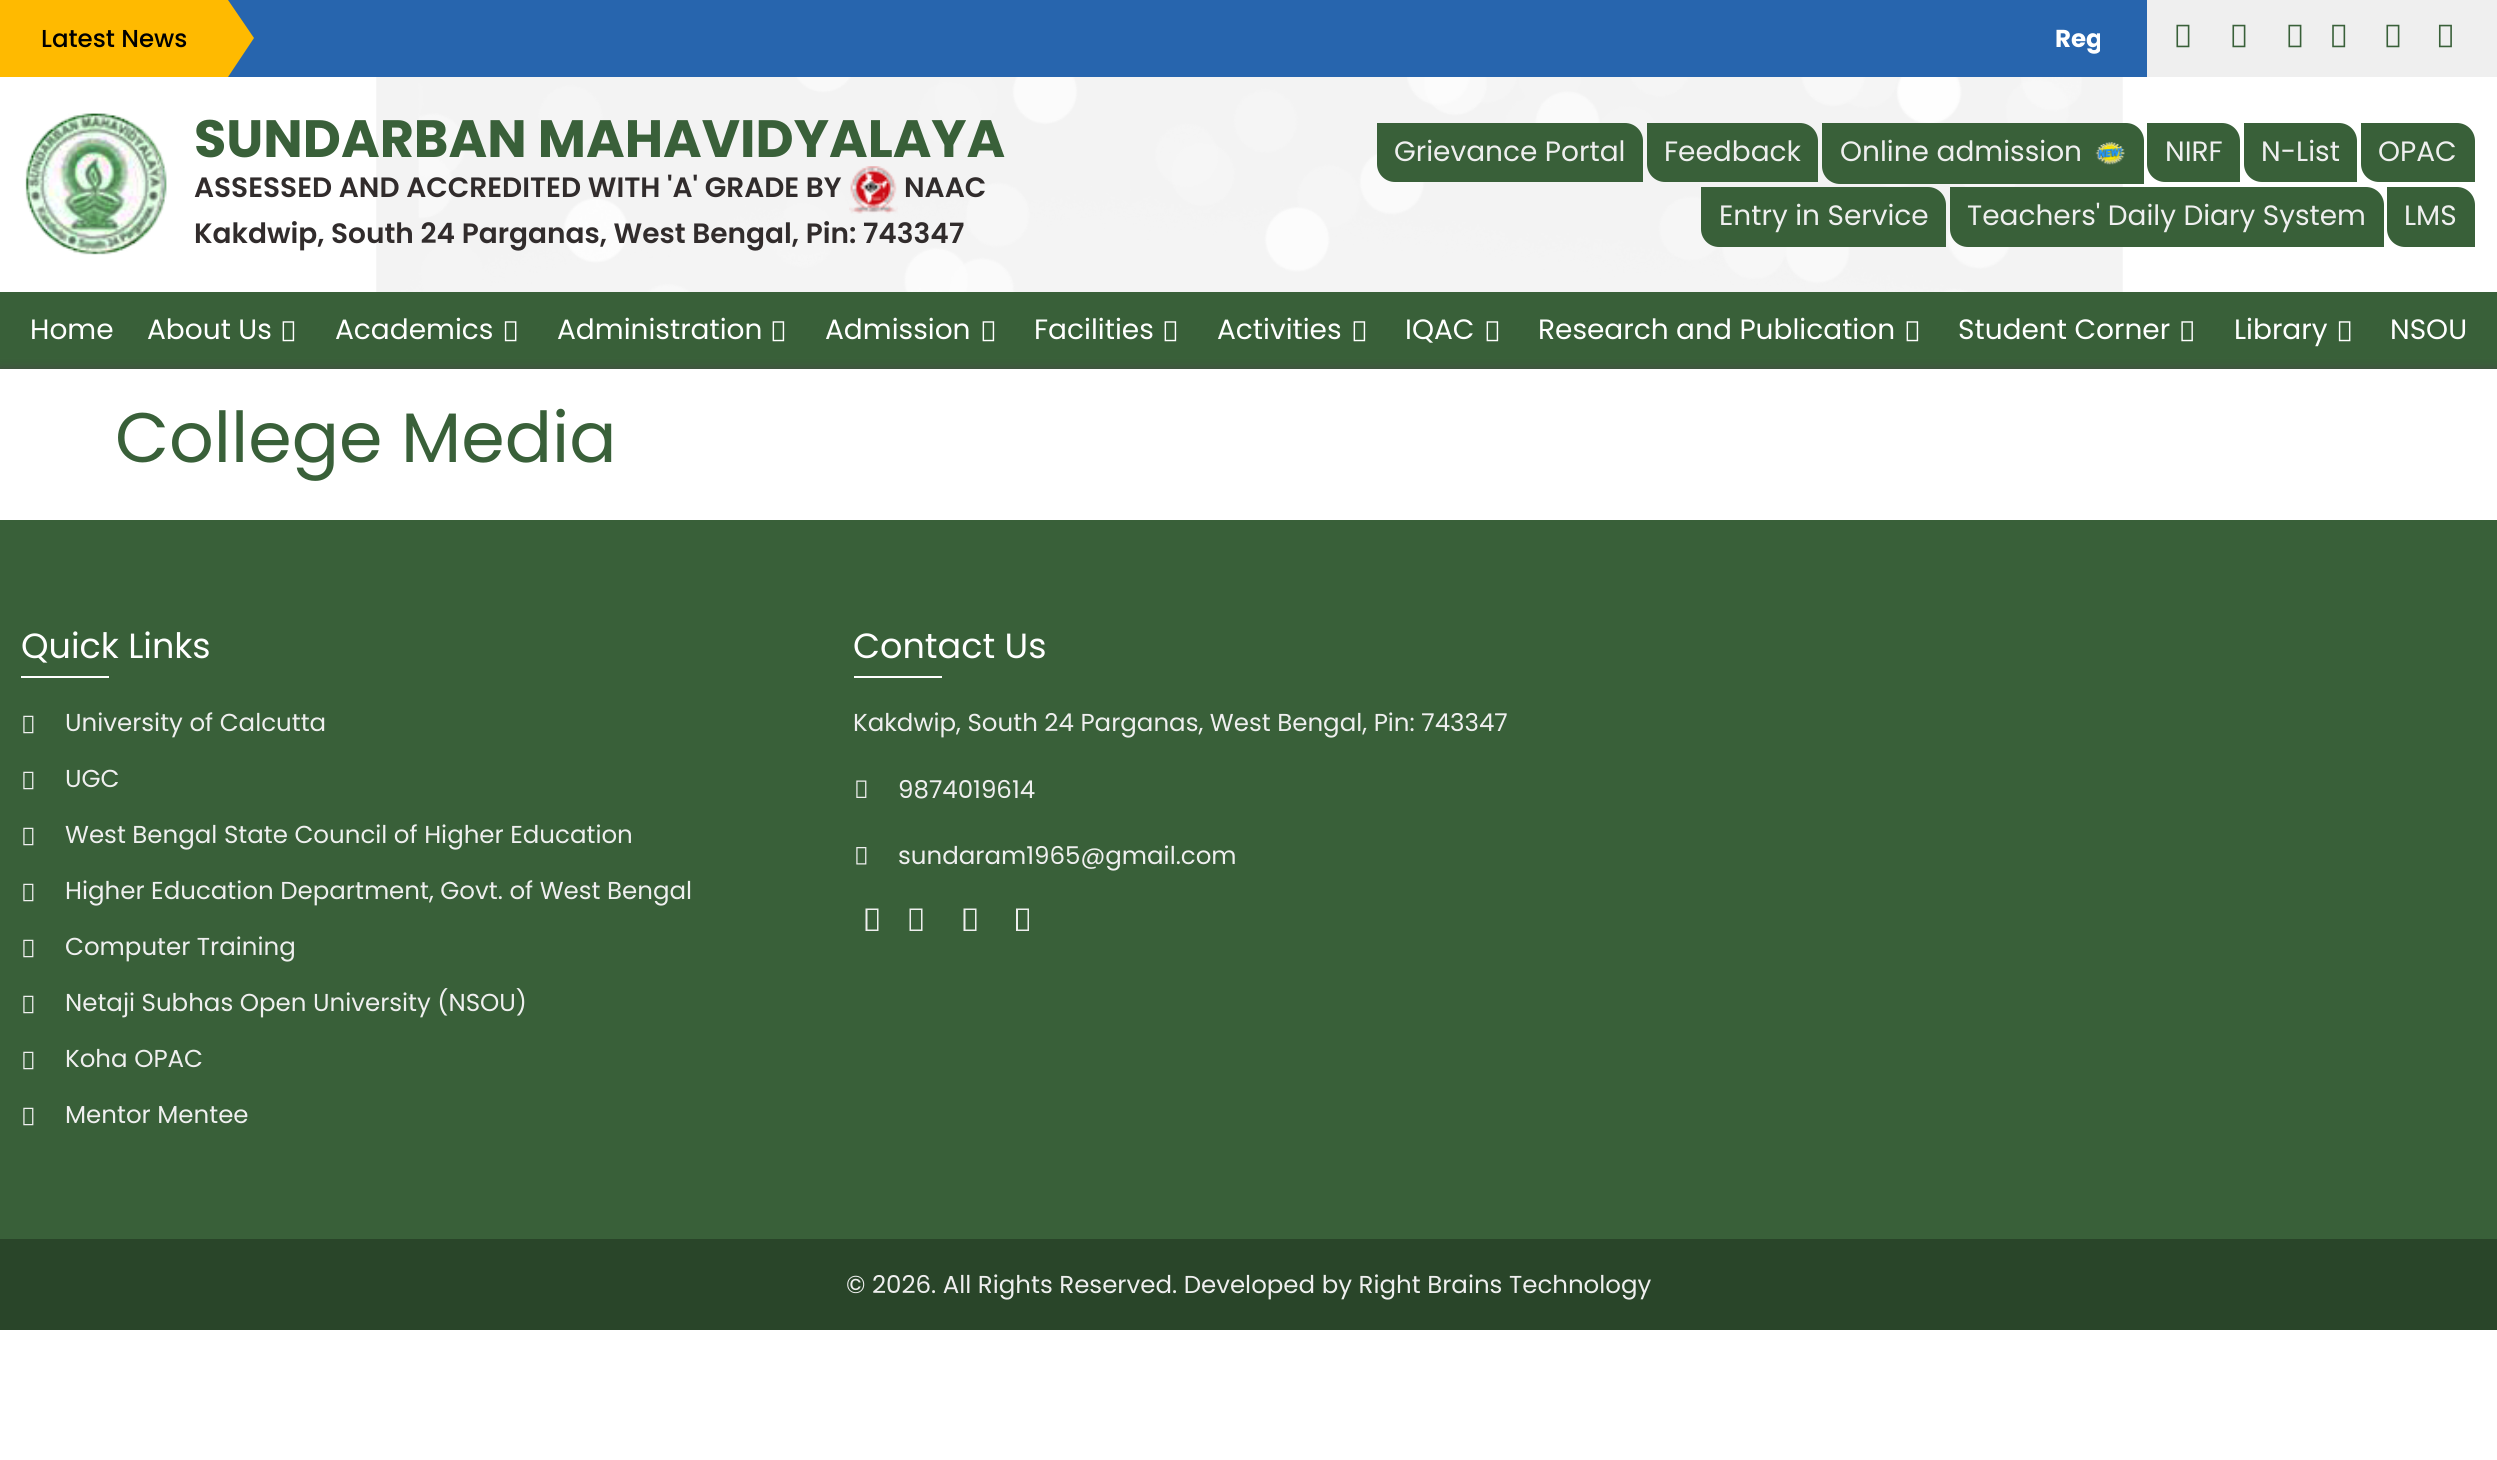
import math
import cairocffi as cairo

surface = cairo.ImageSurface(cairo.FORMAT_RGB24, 2497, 1460)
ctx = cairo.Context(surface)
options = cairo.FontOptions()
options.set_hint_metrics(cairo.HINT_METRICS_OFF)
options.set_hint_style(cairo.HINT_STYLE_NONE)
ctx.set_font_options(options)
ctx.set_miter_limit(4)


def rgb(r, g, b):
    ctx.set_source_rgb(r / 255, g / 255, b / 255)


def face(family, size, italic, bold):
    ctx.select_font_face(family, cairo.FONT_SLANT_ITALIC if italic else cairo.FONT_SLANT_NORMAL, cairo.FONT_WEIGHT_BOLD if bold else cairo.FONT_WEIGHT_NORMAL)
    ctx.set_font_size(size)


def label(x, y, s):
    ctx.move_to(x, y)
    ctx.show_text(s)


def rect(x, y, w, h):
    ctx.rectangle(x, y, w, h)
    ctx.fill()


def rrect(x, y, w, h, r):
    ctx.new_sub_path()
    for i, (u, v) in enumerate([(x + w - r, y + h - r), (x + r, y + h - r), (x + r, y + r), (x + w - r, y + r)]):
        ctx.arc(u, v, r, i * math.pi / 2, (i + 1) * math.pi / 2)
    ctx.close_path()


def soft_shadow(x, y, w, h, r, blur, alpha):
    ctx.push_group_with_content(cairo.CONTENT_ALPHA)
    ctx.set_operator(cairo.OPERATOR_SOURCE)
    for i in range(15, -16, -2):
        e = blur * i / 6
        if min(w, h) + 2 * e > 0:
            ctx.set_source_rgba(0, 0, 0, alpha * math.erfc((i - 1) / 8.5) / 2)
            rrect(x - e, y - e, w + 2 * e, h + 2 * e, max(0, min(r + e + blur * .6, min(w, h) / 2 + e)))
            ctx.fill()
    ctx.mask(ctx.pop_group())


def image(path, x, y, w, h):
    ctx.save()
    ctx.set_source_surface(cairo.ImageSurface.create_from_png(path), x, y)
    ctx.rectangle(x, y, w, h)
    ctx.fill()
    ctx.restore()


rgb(255, 255, 255)
ctx.paint()
image('image0.png', 376, 77, 1747, 215)
rgb(39, 101, 174)
rect(228, 0, 1919, 77)
rgb(255, 186, 0)
rect(0, 0, 228, 77)
face('Poppins Medium', 24.5, 0, 0)
rgb(0, 0, 0)
label(41, 47, 'Latest News')
rgb(255, 186, 0)
ctx.new_path()
ctx.move_to(228, 77)
ctx.line_to(228, 0)
ctx.line_to(254, 38)
ctx.close_path()
ctx.fill()
ctx.save()
ctx.rectangle(254, 9, 1846, 59)
ctx.clip()
face('Poppins', 24.5, 0, 1)
rgb(255, 255, 255)
label(2055, 47, 'Reg')
ctx.restore()
rgb(239, 239, 239)
rect(2147, 0, 350, 77)
image('image1.png', 2176, 24, 14, 24)
image('image1.png', 2232, 24, 14, 24)
image('image1.png', 2288, 24, 14, 24)
image('image2.png', 2332, 24, 14, 24)
image('image1.png', 2386, 24, 14, 24)
image('image3.png', 2438, 24, 14, 24)
image('image4.png', 25, 113, 142, 142)
face('Poppins', 52.5, 0, 1)
rgb(57, 96, 57)
label(194, 157, 'SUNDARBAN MAHAVIDYALAYA')
face('Poppins SemiBold', 28, 0, 0)
rgb(49, 44, 44)
label(194, 197, 'ASSESSED AND ACCREDITED WITH \'A\' GRADE BY')
image('image5.png', 849, 166, 49, 48)
label(904, 197, 'NAAC')
label(194, 243, 'Kakdwip, South 24 Parganas, West Bengal, Pin: 743347')
rgb(57, 96, 57)
ctx.new_path()
ctx.move_to(1377, 123)
ctx.line_to(1625, 123)
ctx.curve_to(1635, 123, 1643, 131, 1643, 141)
ctx.line_to(1643, 182)
ctx.line_to(1395, 182)
ctx.curve_to(1385, 182, 1377, 174, 1377, 164)
ctx.close_path()
ctx.fill()
face('Poppins', 28, 0, 0)
rgb(239, 239, 239)
label(1394, 161, 'Grievance Portal')
rgb(57, 96, 57)
ctx.new_path()
ctx.move_to(1647, 123)
ctx.line_to(1800, 123)
ctx.curve_to(1810, 123, 1818, 131, 1818, 141)
ctx.line_to(1818, 182)
ctx.line_to(1665, 182)
ctx.curve_to(1655, 182, 1647, 174, 1647, 164)
ctx.close_path()
ctx.fill()
rgb(239, 239, 239)
label(1664, 161, 'Feedback')
rgb(57, 96, 57)
ctx.new_path()
ctx.move_to(1822, 123)
ctx.line_to(2126, 123)
ctx.curve_to(2136, 123, 2144, 131, 2144, 141)
ctx.line_to(2144, 184)
ctx.line_to(1840, 184)
ctx.curve_to(1830, 184, 1822, 176, 1822, 166)
ctx.close_path()
ctx.fill()
rgb(239, 239, 239)
label(1840, 161, 'Online admission')
image('image6.png', 2095, 142, 30, 23)
rgb(57, 96, 57)
ctx.new_path()
ctx.move_to(2147, 123)
ctx.line_to(2222, 123)
ctx.curve_to(2232, 123, 2240, 131, 2240, 141)
ctx.line_to(2240, 182)
ctx.line_to(2165, 182)
ctx.curve_to(2155, 182, 2147, 174, 2147, 164)
ctx.close_path()
ctx.fill()
rgb(239, 239, 239)
label(2165, 161, 'NIRF')
rgb(57, 96, 57)
ctx.new_path()
ctx.move_to(2244, 123)
ctx.line_to(2339, 123)
ctx.curve_to(2349, 123, 2357, 131, 2357, 141)
ctx.line_to(2357, 182)
ctx.line_to(2262, 182)
ctx.curve_to(2252, 182, 2244, 174, 2244, 164)
ctx.close_path()
ctx.fill()
rgb(239, 239, 239)
label(2261, 161, 'N-List')
rgb(57, 96, 57)
ctx.new_path()
ctx.move_to(2361, 123)
ctx.line_to(2457, 123)
ctx.curve_to(2467, 123, 2475, 131, 2475, 141)
ctx.line_to(2475, 182)
ctx.line_to(2379, 182)
ctx.curve_to(2369, 182, 2361, 174, 2361, 164)
ctx.close_path()
ctx.fill()
rgb(239, 239, 239)
label(2378, 161, 'OPAC')
rgb(57, 96, 57)
ctx.new_path()
ctx.move_to(1701, 187)
ctx.line_to(1928, 187)
ctx.curve_to(1938, 187, 1946, 195, 1946, 205)
ctx.line_to(1946, 247)
ctx.line_to(1719, 247)
ctx.curve_to(1709, 247, 1701, 239, 1701, 229)
ctx.close_path()
ctx.fill()
rgb(239, 239, 239)
label(1719, 225, 'Entry in Service')
rgb(57, 96, 57)
ctx.new_path()
ctx.move_to(1950, 187)
ctx.line_to(2366, 187)
ctx.curve_to(2376, 187, 2384, 195, 2384, 205)
ctx.line_to(2384, 247)
ctx.line_to(1968, 247)
ctx.curve_to(1958, 247, 1950, 239, 1950, 229)
ctx.close_path()
ctx.fill()
rgb(239, 239, 239)
label(1967, 225, 'Teachers\' Daily Diary System')
rgb(57, 96, 57)
ctx.new_path()
ctx.move_to(2387, 187)
ctx.line_to(2457, 187)
ctx.curve_to(2467, 187, 2475, 195, 2475, 205)
ctx.line_to(2475, 247)
ctx.line_to(2405, 247)
ctx.curve_to(2395, 247, 2387, 239, 2387, 229)
ctx.close_path()
ctx.fill()
rgb(239, 239, 239)
label(2404, 225, 'LMS')
rgb(57, 96, 57)
rect(0, 292, 2497, 77)
rgb(255, 255, 255)
label(30, 339, 'Home')
label(147, 339, 'About Us')
image('image7.png', 282, 321, 13, 21)
label(335, 339, 'Academics')
image('image8.png', 504, 321, 13, 21)
label(557, 339, 'Administration')
image('image7.png', 772, 321, 13, 21)
label(825, 339, 'Admission')
image('image7.png', 982, 321, 13, 21)
label(1034, 339, 'Facilities')
image('image7.png', 1164, 321, 13, 21)
label(1217, 339, 'Activities')
image('image7.png', 1353, 321, 13, 21)
label(1405, 339, 'IQAC')
image('image7.png', 1486, 321, 13, 21)
label(1538, 339, 'Research and Publication')
image('image7.png', 1906, 321, 13, 21)
label(1958, 339, 'Student Corner')
image('image9.png', 2181, 321, 12, 21)
label(2234, 339, 'Library')
image('image8.png', 2338, 321, 13, 21)
label(2390, 339, 'NSOU')
rgb(70, 70, 70)
soft_shadow(0, 369, 2497, 151, 0, 4.5, 1)
rgb(255, 255, 255)
rect(0, 369, 2497, 151)
face('Poppins', 70, 0, 0)
rgb(57, 96, 57)
label(115, 462, 'College Media')
rect(0, 520, 2497, 719)
face('Poppins', 35, 0, 0)
rgb(255, 255, 255)
label(21, 658, 'Quick Links')
rect(21, 676, 88, 2)
image('image10.png', 23, 715, 11, 19)
face('Poppins', 24.5, 0, 0)
rgb(239, 239, 239)
label(65, 731, 'University of Calcutta')
image('image10.png', 23, 771, 11, 19)
label(65, 787, 'UGC')
image('image10.png', 23, 827, 11, 19)
label(65, 843, 'West Bengal State Council of Higher Education')
image('image10.png', 23, 883, 11, 19)
label(65, 899, 'Higher Education Department, Govt. of West Bengal')
image('image10.png', 23, 939, 11, 19)
label(65, 955, 'Computer Training')
image('image10.png', 23, 995, 11, 19)
label(65, 1011, 'Netaji Subhas Open University (NSOU)')
image('image10.png', 23, 1051, 11, 19)
label(65, 1067, 'Koha OPAC')
image('image10.png', 23, 1107, 11, 19)
label(65, 1123, 'Mentor Mentee')
face('Poppins', 35, 0, 0)
rgb(255, 255, 255)
label(853, 658, 'Contact Us')
rect(854, 676, 88, 2)
face('Poppins', 24.5, 0, 0)
rgb(239, 239, 239)
label(853, 731, 'Kakdwip, South 24 Parganas, West Bengal, Pin: 743347')
image('image11.png', 856, 780, 11, 18)
label(898, 798, '9874019614')
image('image12.png', 856, 847, 11, 18)
label(898, 864, 'sundaram1965@gmail.com')
ctx.new_path()
ctx.move_to(865.5, 931)
ctx.line_to(865.5, 908.5)
ctx.line_to(878.5, 908.5)
ctx.line_to(878.5, 931)
ctx.close_path()
ctx.move_to(867.5, 929.5)
ctx.line_to(877, 929.5)
ctx.line_to(877, 910)
ctx.line_to(867.5, 910)
ctx.close_path()
ctx.move_to(909.5, 931)
ctx.line_to(909.5, 908.5)
ctx.line_to(922.5, 908.5)
ctx.line_to(922.5, 931)
ctx.close_path()
ctx.move_to(911, 929.5)
ctx.line_to(921, 929.5)
ctx.line_to(921, 910)
ctx.line_to(911, 910)
ctx.close_path()
ctx.fill()
ctx.new_path()
ctx.move_to(963.5, 931)
ctx.line_to(963.5, 908.5)
ctx.line_to(976.5, 908.5)
ctx.line_to(976.5, 931)
ctx.close_path()
ctx.move_to(965.5, 929.5)
ctx.line_to(975, 929.5)
ctx.line_to(975, 910)
ctx.line_to(965.5, 910)
ctx.close_path()
ctx.fill()
ctx.new_path()
ctx.move_to(1016, 931)
ctx.line_to(1016, 908.5)
ctx.line_to(1029, 908.5)
ctx.line_to(1029, 931)
ctx.close_path()
ctx.move_to(1018, 929.5)
ctx.line_to(1027.5, 929.5)
ctx.line_to(1027.5, 910)
ctx.line_to(1018, 910)
ctx.close_path()
ctx.fill()
rgb(41, 69, 41)
rect(0, 1239, 2497, 91)
rgb(239, 239, 239)
label(846, 1293, '© 2026. All Rights Reserved. Developed by Right Brains Technology')
surface.write_to_png('render.png')
